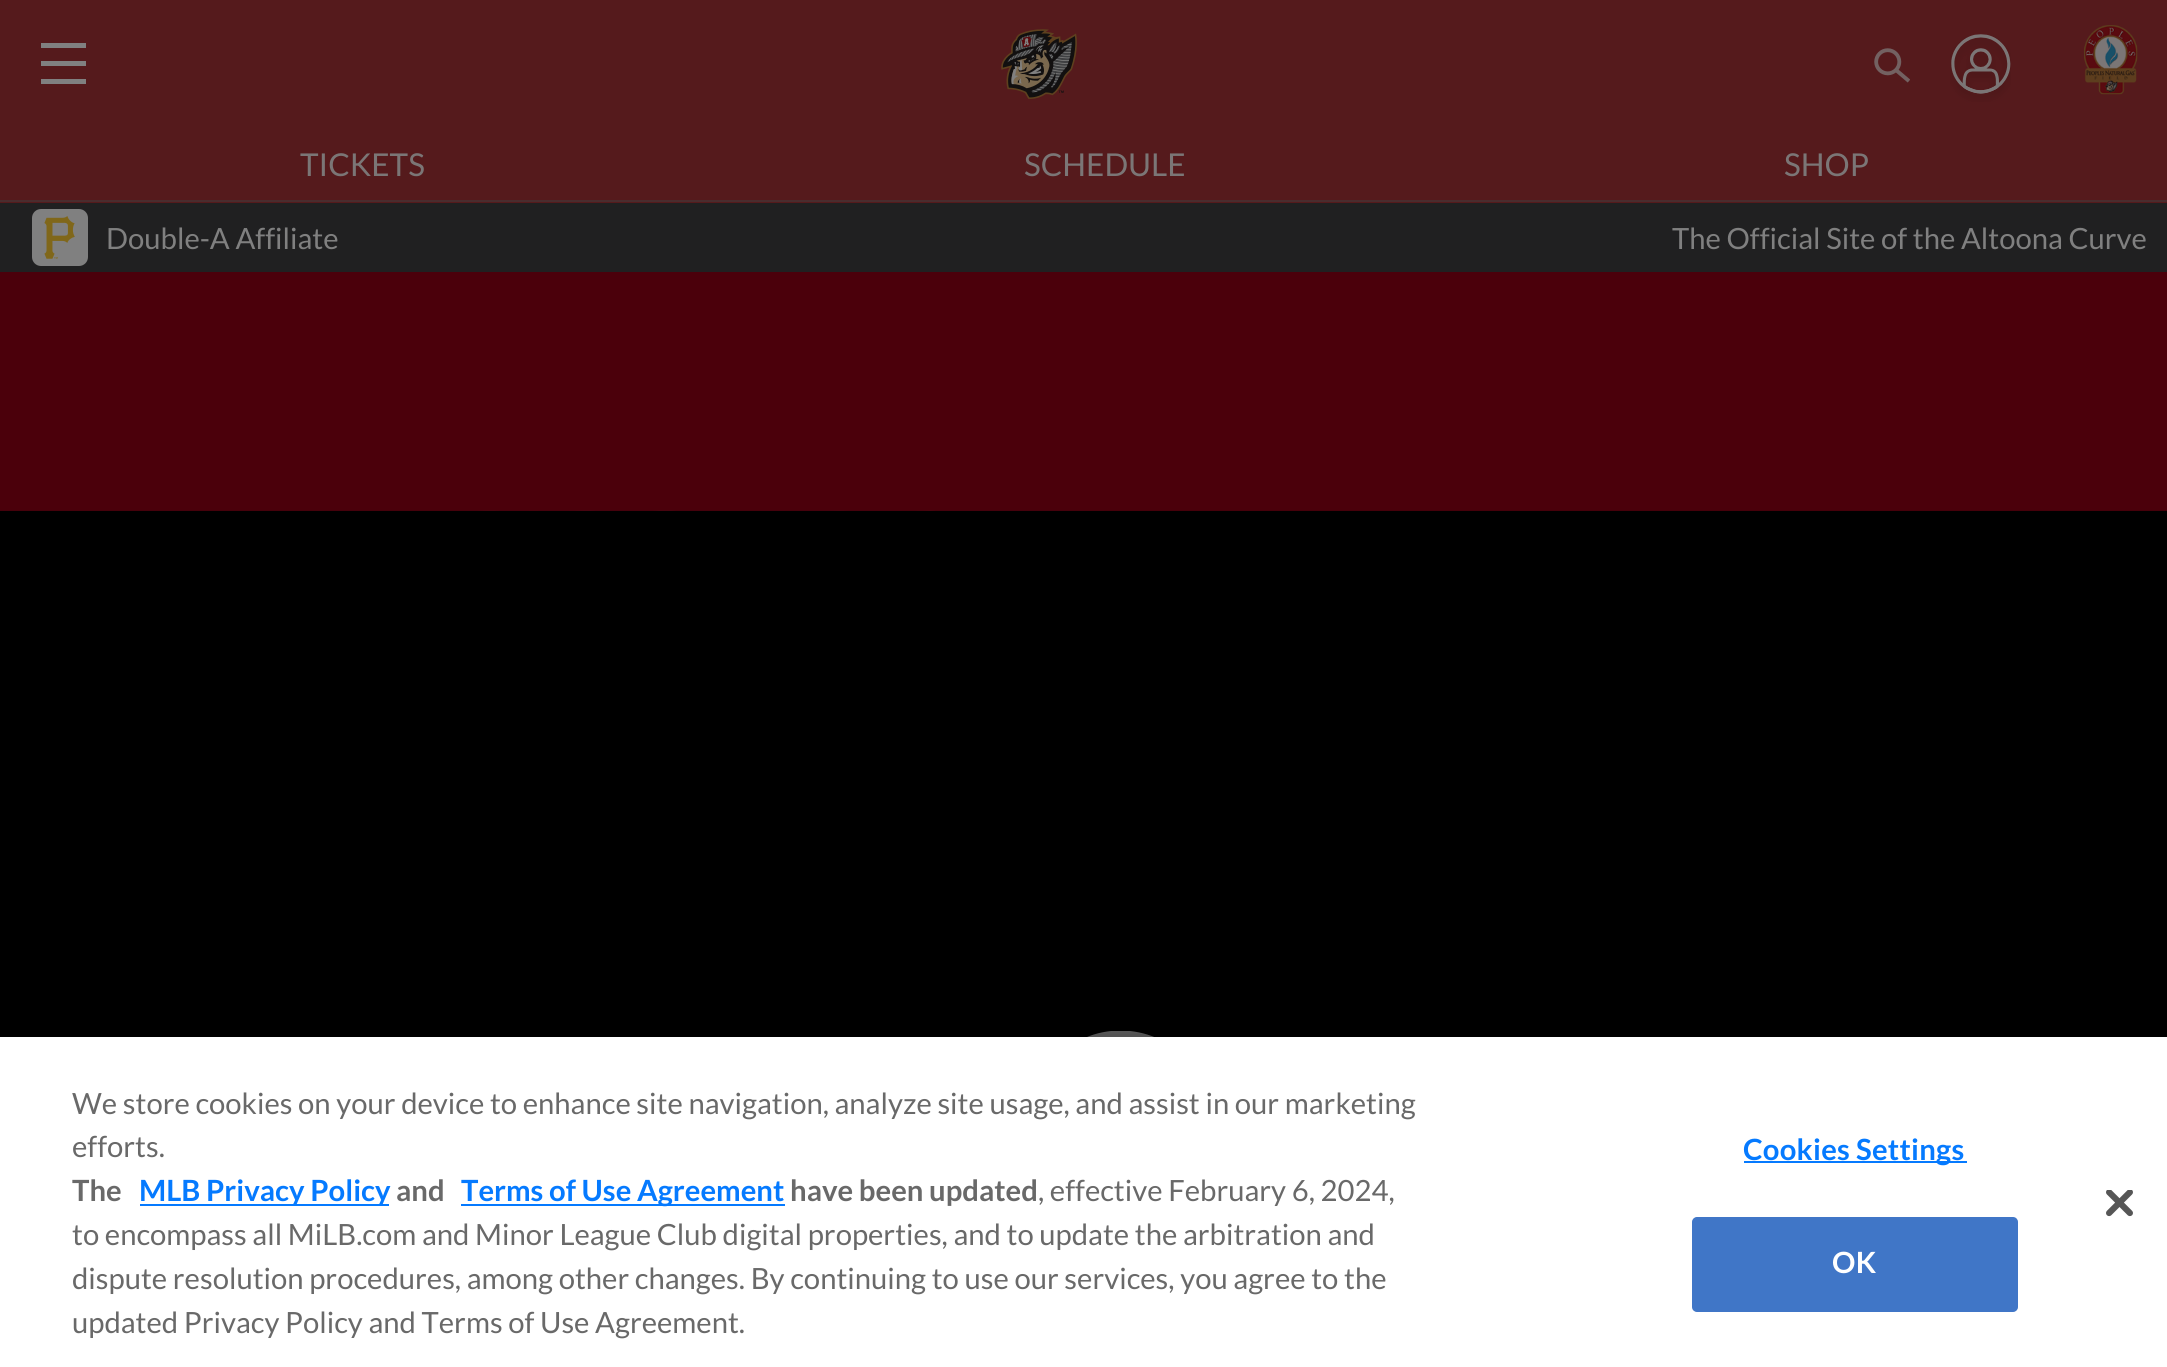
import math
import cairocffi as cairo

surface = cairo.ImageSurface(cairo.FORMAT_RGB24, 2167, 1367)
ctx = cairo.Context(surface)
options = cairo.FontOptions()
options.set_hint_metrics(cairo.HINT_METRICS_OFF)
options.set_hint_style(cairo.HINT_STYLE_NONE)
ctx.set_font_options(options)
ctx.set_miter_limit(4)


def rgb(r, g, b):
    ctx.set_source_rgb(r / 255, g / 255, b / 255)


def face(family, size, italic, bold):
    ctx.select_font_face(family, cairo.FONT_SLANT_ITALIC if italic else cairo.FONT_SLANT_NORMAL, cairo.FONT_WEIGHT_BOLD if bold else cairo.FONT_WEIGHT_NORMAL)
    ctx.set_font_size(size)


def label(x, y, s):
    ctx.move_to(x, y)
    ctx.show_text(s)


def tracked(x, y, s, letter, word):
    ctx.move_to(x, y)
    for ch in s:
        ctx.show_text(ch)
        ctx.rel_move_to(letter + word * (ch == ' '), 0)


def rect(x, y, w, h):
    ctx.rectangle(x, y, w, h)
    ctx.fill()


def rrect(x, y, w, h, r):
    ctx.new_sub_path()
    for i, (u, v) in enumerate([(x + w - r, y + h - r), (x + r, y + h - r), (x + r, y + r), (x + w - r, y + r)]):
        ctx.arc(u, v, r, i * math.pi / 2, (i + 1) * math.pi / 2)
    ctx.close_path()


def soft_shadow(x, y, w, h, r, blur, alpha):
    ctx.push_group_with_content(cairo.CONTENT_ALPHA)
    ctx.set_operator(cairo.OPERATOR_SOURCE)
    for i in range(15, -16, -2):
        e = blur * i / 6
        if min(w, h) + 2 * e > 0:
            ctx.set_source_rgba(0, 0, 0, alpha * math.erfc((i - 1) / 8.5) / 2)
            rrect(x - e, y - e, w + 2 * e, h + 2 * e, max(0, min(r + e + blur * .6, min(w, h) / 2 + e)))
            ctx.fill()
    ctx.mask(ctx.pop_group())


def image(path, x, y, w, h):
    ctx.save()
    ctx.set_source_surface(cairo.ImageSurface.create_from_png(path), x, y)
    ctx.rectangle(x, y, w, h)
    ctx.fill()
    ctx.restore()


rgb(75, 0, 11)
ctx.paint()
rgb(32, 32, 33)
rect(0, 203, 2167, 69)
rgb(85, 26, 28)
rect(0, 0, 2167, 203)
rgb(74, 44, 46)
rect(0, 200, 2167, 2)
rgb(128, 128, 128)
rect(41, 61, 45, 5)
rect(41, 43, 45, 5)
rect(41, 79, 45, 5)
image('image0.png', 1001, 29, 76, 70)
image('image1.png', 1874, 48, 36, 35)
image('image2.png', 1950, 34, 61, 68)
image('image3.png', 2084, 25, 54, 70)
face('Lato', 31.5, 0, 0)
rgb(123, 118, 118)
label(300, 176, 'TICKETS')
label(1024, 176, 'SCHEDULE')
label(1784, 176, 'SHOP')
rgb(128, 128, 128)
rrect(32, 209, 56, 57, 9)
ctx.fill()
image('image4.png', 44, 216, 31, 43)
face('Lato', 29.25, 0, 0)
label(106, 249, 'Double-A Affiliate')
label(1672, 249, 'The Official Site of the Altoona Curve')
image('image5.png', 0, 510, 2167, 1)
rgb(0, 0, 0)
rect(0, 511, 2167, 526)
ctx.save()
ctx.rectangle(1031, 1031, 180, 180)
ctx.clip()
rgb(92, 92, 92)
ctx.arc(1120.5, 1120.5, 90, 0, 2 * math.pi)
ctx.fill()
ctx.restore()
rgb(0, 0, 0)
soft_shadow(0, 1037, 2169, 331, 0, 20, 0.2)
rgb(255, 255, 255)
rect(0, 1037, 2167, 330)
rgb(105, 105, 105)
label(72, 1114, 'We store cookies on your device to enhance site navigation, analyze site usage, and assist in our marketing')
label(72, 1157, 'efforts.')
face('Lato', 29.25, 0, 1)
label(72, 1201, 'The')
rgb(5, 122, 255)
rect(140, 1204, 249, 2)
label(139, 1201, 'MLB Privacy Policy')
rgb(105, 105, 105)
label(396, 1201, 'and')
rgb(5, 122, 255)
rect(461, 1204, 324, 2)
label(461, 1201, 'Terms of Use Agreement')
rgb(105, 105, 105)
label(790, 1201, 'have been updated')
face('Lato', 29.25, 0, 0)
label(1038, 1201, ', effective February 6, 2024,')
label(72, 1245, 'to encompass all MiLB.com and Minor League Club digital properties, and to update the arbitration and')
label(72, 1289, 'dispute resolution procedures, among other changes. By continuing to use our services, you agree to the')
label(72, 1333, 'updated Privacy Policy and Terms of Use Agreement.')
rgb(5, 122, 255)
rect(1744, 1161, 223, 2)
face('Lato', 29.25, 0, 1)
tracked(1743, 1160, 'Cookies Settings', 0.25, 0)
rgb(64, 118, 199)
rrect(1693, 1218, 324, 93, 4)
ctx.fill_preserve()
ctx.stroke()
rgb(255, 255, 255)
tracked(1832, 1273, 'OK', 0.25, 0)
image('image6.png', 2106, 1190, 27, 27)
surface.write_to_png('render.png')
